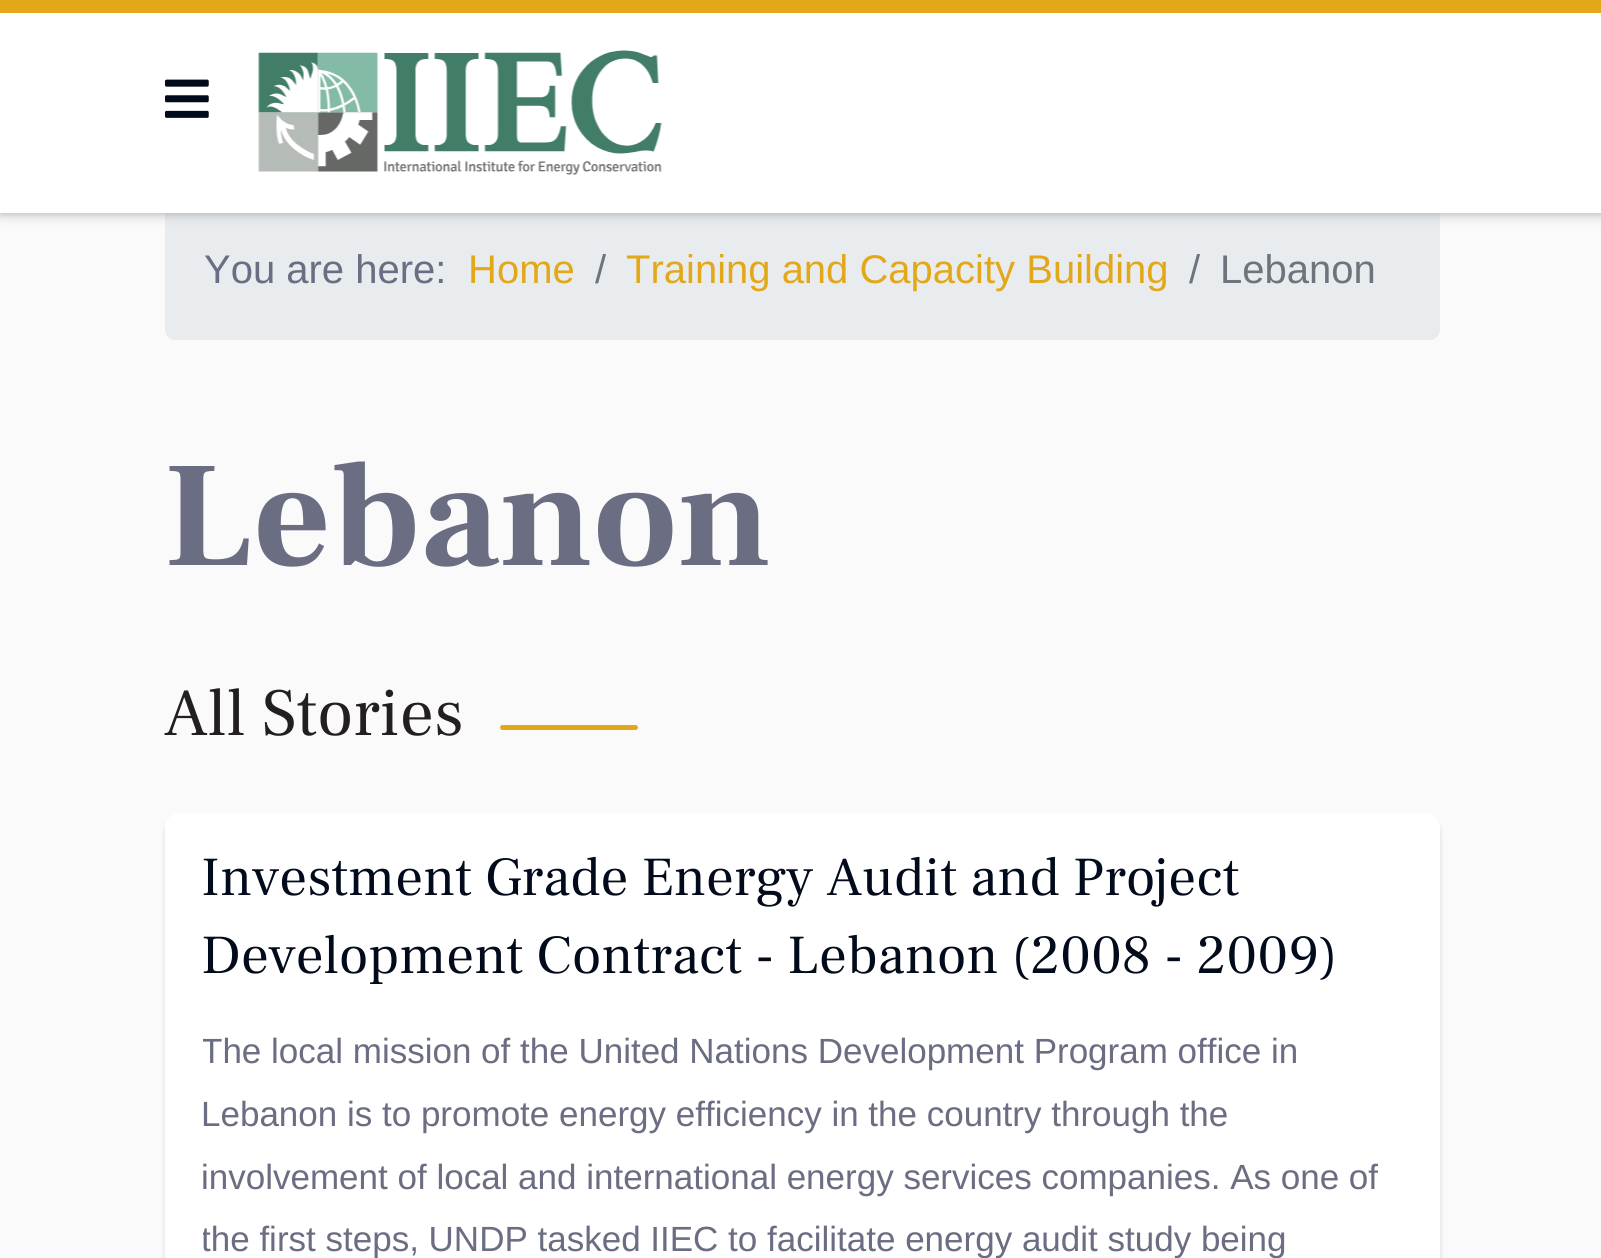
import math
import cairocffi as cairo

surface = cairo.ImageSurface(cairo.FORMAT_RGB24, 1601, 1258)
ctx = cairo.Context(surface)
options = cairo.FontOptions()
options.set_hint_metrics(cairo.HINT_METRICS_OFF)
options.set_hint_style(cairo.HINT_STYLE_NONE)
ctx.set_font_options(options)
ctx.set_miter_limit(4)


def rgb(r, g, b):
    ctx.set_source_rgb(r / 255, g / 255, b / 255)


def face(family, size, italic, bold):
    ctx.select_font_face(family, cairo.FONT_SLANT_ITALIC if italic else cairo.FONT_SLANT_NORMAL, cairo.FONT_WEIGHT_BOLD if bold else cairo.FONT_WEIGHT_NORMAL)
    ctx.set_font_size(size)


def label(x, y, s):
    ctx.move_to(x, y)
    ctx.show_text(s)


def rect(x, y, w, h):
    ctx.rectangle(x, y, w, h)
    ctx.fill()


def rrect(x, y, w, h, r):
    ctx.new_sub_path()
    for i, (u, v) in enumerate([(x + w - r, y + h - r), (x + r, y + h - r), (x + r, y + r), (x + w - r, y + r)]):
        ctx.arc(u, v, r, i * math.pi / 2, (i + 1) * math.pi / 2)
    ctx.close_path()


def soft_shadow(x, y, w, h, r, blur, alpha):
    ctx.push_group_with_content(cairo.CONTENT_ALPHA)
    ctx.set_operator(cairo.OPERATOR_SOURCE)
    for i in range(15, -16, -2):
        e = blur * i / 6
        if min(w, h) + 2 * e > 0:
            ctx.set_source_rgba(0, 0, 0, alpha * math.erfc((i - 1) / 8.5) / 2)
            rrect(x - e, y - e, w + 2 * e, h + 2 * e, max(0, min(r + e + blur * .6, min(w, h) / 2 + e)))
            ctx.fill()
    ctx.mask(ctx.pop_group())


def image(path, x, y, w, h):
    ctx.save()
    ctx.set_source_surface(cairo.ImageSurface.create_from_png(path), x, y)
    ctx.rectangle(x, y, w, h)
    ctx.fill()
    ctx.restore()


rgb(250, 250, 250)
ctx.paint()
rgb(233, 236, 239)
rrect(165, 200, 1275, 140, 10)
ctx.fill()
rgb(151, 151, 151)
soft_shadow(0, 0, 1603, 213, 0, 6, 0.88)
rgb(255, 255, 255)
rect(0, 13, 1601, 200)
rgb(227, 168, 25)
rect(0, 0, 1601, 13)
image('image0.png', 165, 79, 44, 39)
image('image1.png', 258, 50, 404, 125)
face('Arimo', 40, 0, 0)
rgb(107, 109, 131)
label(204, 283, 'You are here:')
rgb(227, 168, 25)
label(468, 283, 'Home')
rgb(108, 117, 125)
label(595, 283, '/')
rgb(227, 168, 25)
label(626, 283, 'Training and Capacity Building')
rgb(108, 117, 125)
label(1189, 283, '/')
label(1220, 283, 'Lebanon')
face('Frank Ruhl Libre', 150, 0, 1)
rgb(107, 109, 131)
label(164, 565, 'Lebanon')
face('Frank Ruhl Libre', 67.5, 0, 0)
rgb(35, 31, 32)
label(164, 735, 'All Stories')
rgb(227, 168, 25)
rrect(500, 725, 138, 5, 2.5)
ctx.fill()
rgb(0, 0, 0)
soft_shadow(165, 818, 1275, 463, 15, 2.5, 0.13)
rgb(255, 255, 255)
rrect(165, 813, 1275, 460, 15)
ctx.fill()
face('Frank Ruhl Libre', 55, 0, 0)
rgb(2, 11, 27)
label(201, 895, 'Investment Grade Energy Audit and Project')
label(201, 973, 'Development Contract - Lebanon (2008 - 2009)')
ctx.save()
ctx.rectangle(203, 1020, 1200, 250)
ctx.clip()
face('Arimo', 35, 0, 0)
rgb(107, 109, 131)
label(201, 1063, 'The local mission of the United Nations Development Program office in')
ctx.restore()
face('Arimo', 35, 0, 0)
rgb(107, 109, 131)
label(201, 1126, 'Lebanon is to promote energy efficiency in the country through the')
label(201, 1189, 'involvement of local and international energy services companies. As one of')
ctx.save()
ctx.rectangle(203, 1020, 1200, 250)
ctx.clip()
label(201, 1251, 'the first steps, UNDP tasked IIEC to facilitate energy audit study being')
ctx.restore()
surface.write_to_png('render.png')
